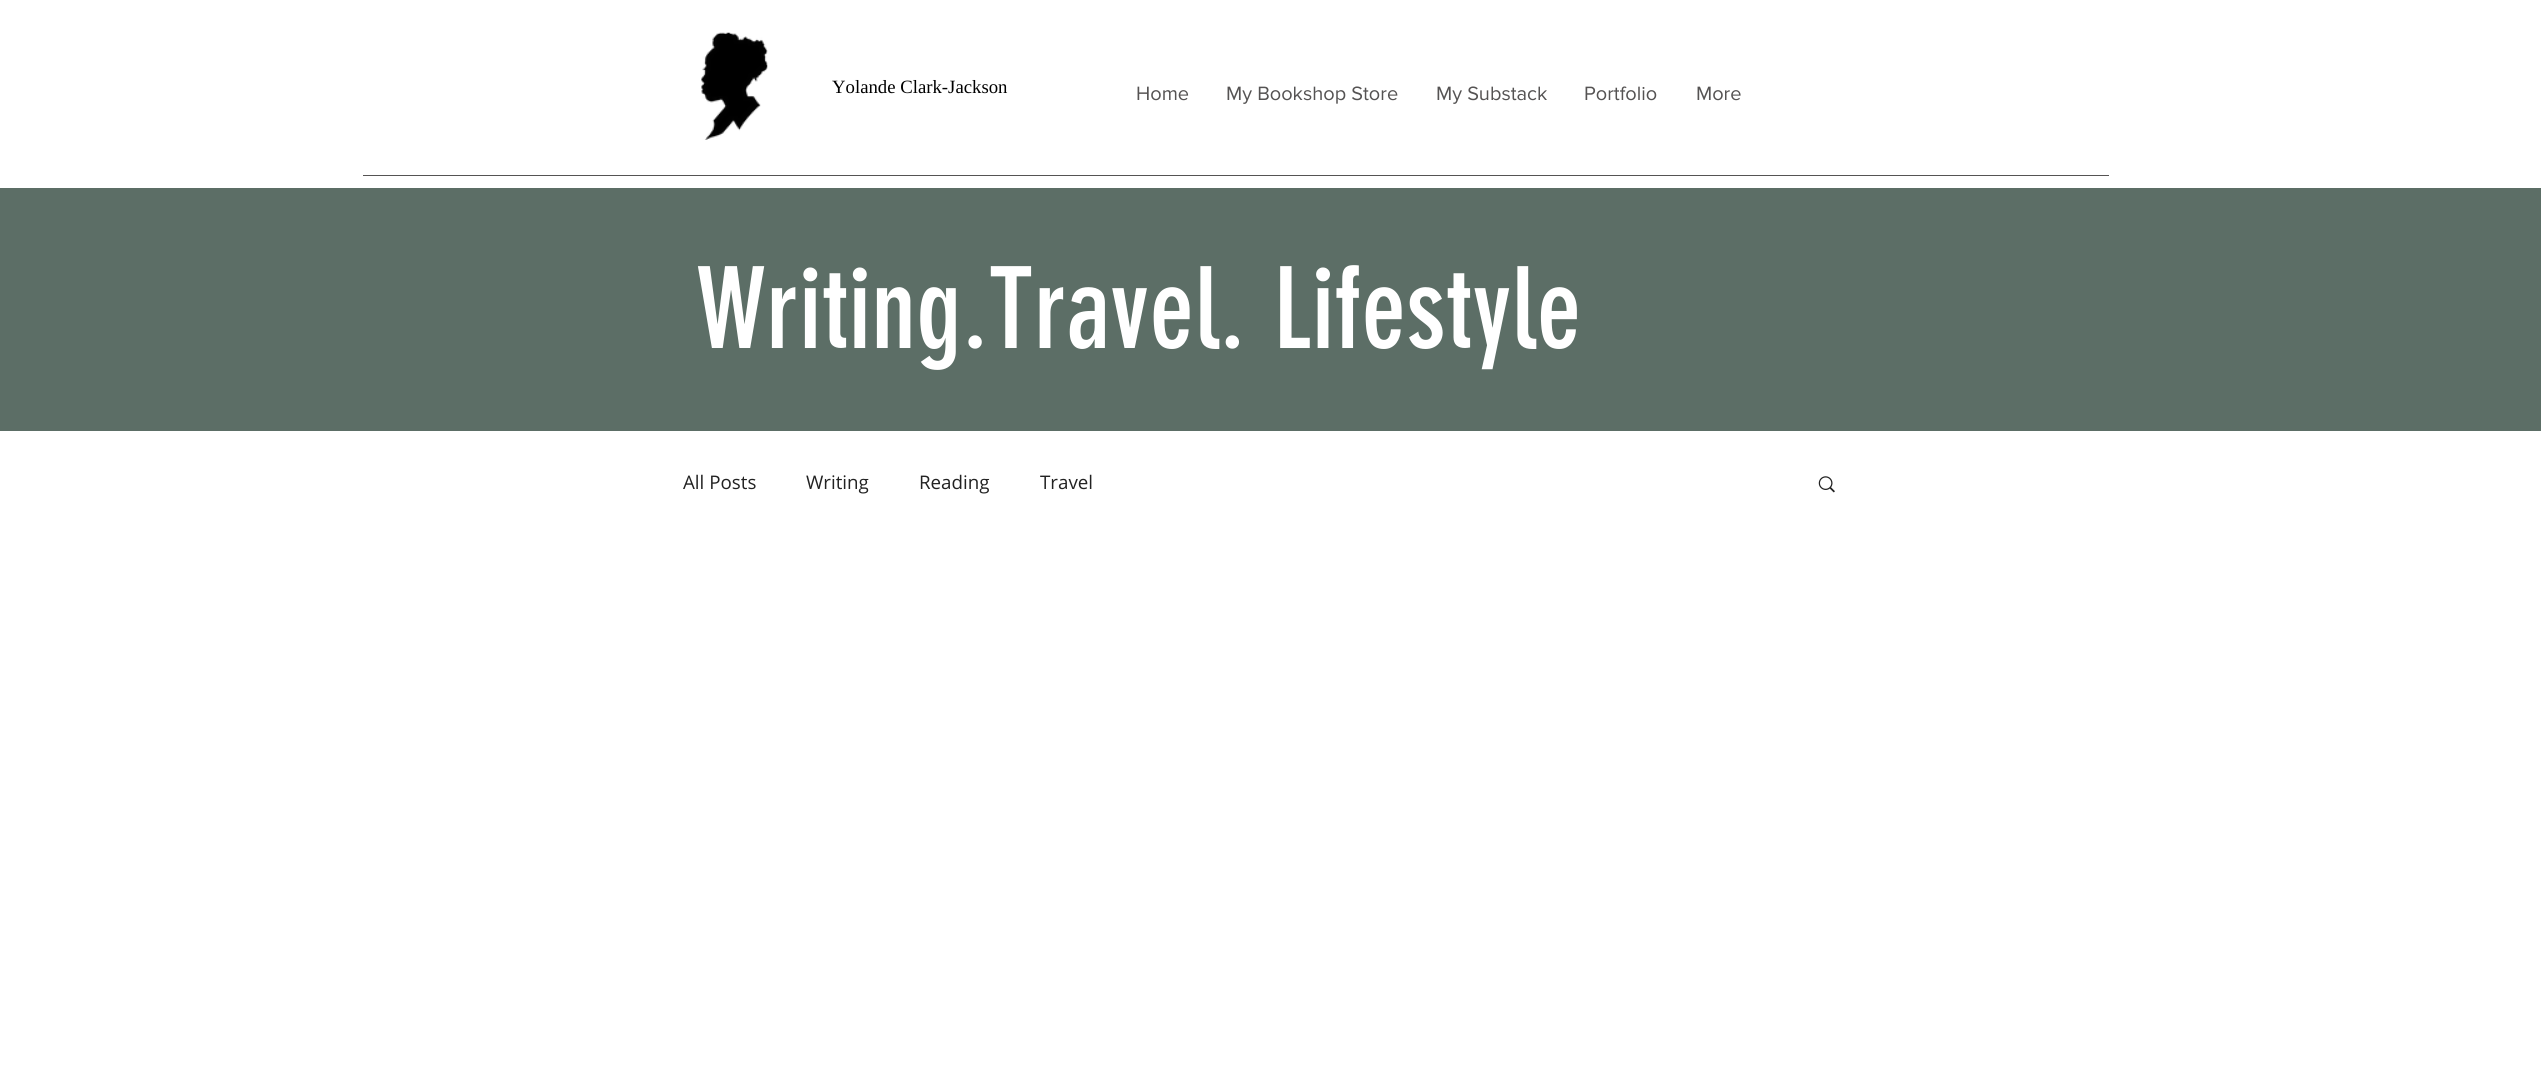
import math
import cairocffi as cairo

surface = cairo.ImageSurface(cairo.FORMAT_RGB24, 2541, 1072)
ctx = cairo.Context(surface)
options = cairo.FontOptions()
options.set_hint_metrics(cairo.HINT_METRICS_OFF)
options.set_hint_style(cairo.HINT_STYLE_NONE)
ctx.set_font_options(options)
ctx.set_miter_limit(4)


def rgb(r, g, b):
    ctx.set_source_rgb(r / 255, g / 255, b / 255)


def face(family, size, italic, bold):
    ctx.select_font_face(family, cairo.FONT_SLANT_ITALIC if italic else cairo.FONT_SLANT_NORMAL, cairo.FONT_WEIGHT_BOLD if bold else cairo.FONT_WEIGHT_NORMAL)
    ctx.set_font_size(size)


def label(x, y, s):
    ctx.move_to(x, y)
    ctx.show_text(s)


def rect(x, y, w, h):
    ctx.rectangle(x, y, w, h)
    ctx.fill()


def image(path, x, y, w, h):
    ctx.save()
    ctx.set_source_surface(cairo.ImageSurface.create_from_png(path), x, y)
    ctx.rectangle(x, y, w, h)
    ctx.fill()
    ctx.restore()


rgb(255, 255, 255)
ctx.paint()
image('image0.png', 701, 32, 67, 108)
face('Liberation Serif', 18.75, 0, 0)
rgb(0, 0, 0)
label(832, 93, 'Yolande Clark-Jackson')
face('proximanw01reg', 20, 0, 0)
rgb(85, 83, 83)
label(1136, 100, 'Home')
label(1226, 100, 'My Bookshop Store')
label(1436, 100, 'My Substack')
label(1584, 100, 'Portfolio')
label(1696, 100, 'More')
rect(363, 175, 1746, 1)
rgb(92, 110, 102)
rect(0, 188, 2541, 243)
face('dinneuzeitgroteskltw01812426', 111.25, 0, 0)
rgb(255, 255, 255)
label(696, 348, 'Writing.Travel. Lifestyle')
face('Open Sans', 18.75, 0, 0)
rgb(34, 34, 34)
label(683, 489, 'All Posts')
label(806, 489, 'Writing')
label(919, 489, 'Reading')
label(1040, 489, 'Travel')
image('image1.png', 1818, 476, 17, 17)
surface.write_to_png('render.png')
